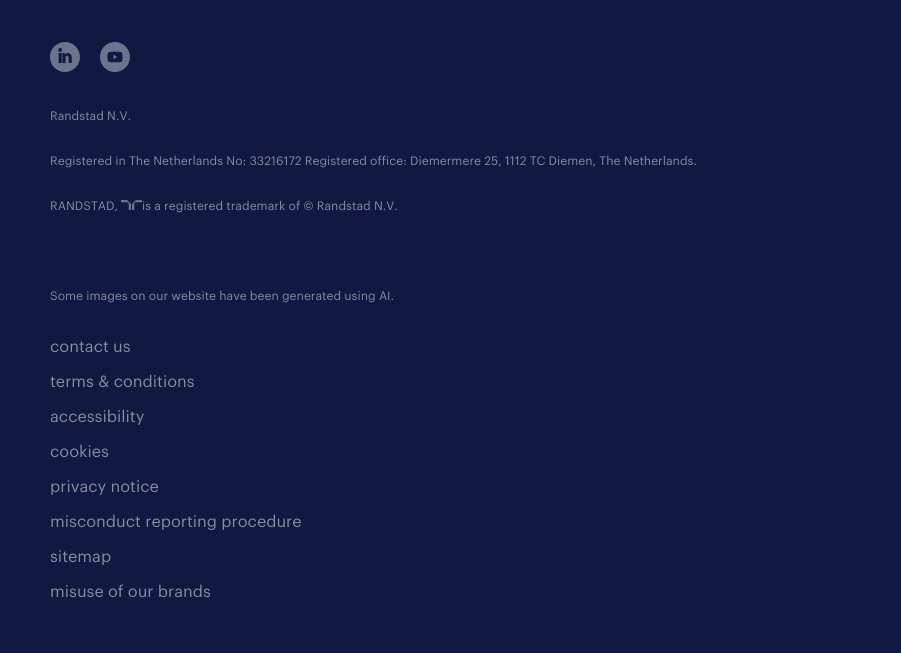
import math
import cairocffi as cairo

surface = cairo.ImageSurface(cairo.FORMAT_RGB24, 901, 653)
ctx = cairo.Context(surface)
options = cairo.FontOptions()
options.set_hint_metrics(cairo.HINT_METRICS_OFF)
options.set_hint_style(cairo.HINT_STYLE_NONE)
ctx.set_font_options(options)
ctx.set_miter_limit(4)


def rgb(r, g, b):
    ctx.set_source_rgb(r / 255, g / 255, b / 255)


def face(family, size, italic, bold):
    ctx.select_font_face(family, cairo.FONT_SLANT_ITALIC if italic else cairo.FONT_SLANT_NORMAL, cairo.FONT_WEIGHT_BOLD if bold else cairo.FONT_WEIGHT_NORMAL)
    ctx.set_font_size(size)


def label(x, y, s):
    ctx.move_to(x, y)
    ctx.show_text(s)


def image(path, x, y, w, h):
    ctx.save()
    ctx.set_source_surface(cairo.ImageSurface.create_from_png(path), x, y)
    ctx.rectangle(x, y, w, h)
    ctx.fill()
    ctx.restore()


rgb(15, 25, 65)
ctx.paint()
image('image0.png', 50, 42, 30, 30)
image('image1.png', 100, 42, 30, 30)
face('Graphik', 12, 0, 0)
rgb(135, 140, 160)
label(50, 120, 'Randstad N.V.')
label(50, 165, 'Registered in The Netherlands No: 33216172 Registered office: Diemermere 25, 1112 TC Diemen, The Netherlands.')
label(50, 210, 'RANDSTAD,')
image('image2.png', 121, 200, 21, 10)
label(142, 210, 'is a registered trademark of © Randstad N.V.')
label(50, 300, 'Some images on our website have been generated using AI.')
face('Graphik', 16, 0, 0)
label(50, 352, 'contact us')
label(50, 387, 'terms & conditions')
label(50, 422, 'accessibility')
label(50, 457, 'cookies')
label(50, 492, 'privacy notice')
label(50, 527, 'misconduct reporting procedure')
label(50, 562, 'sitemap')
label(50, 597, 'misuse of our brands')
surface.write_to_png('render.png')
